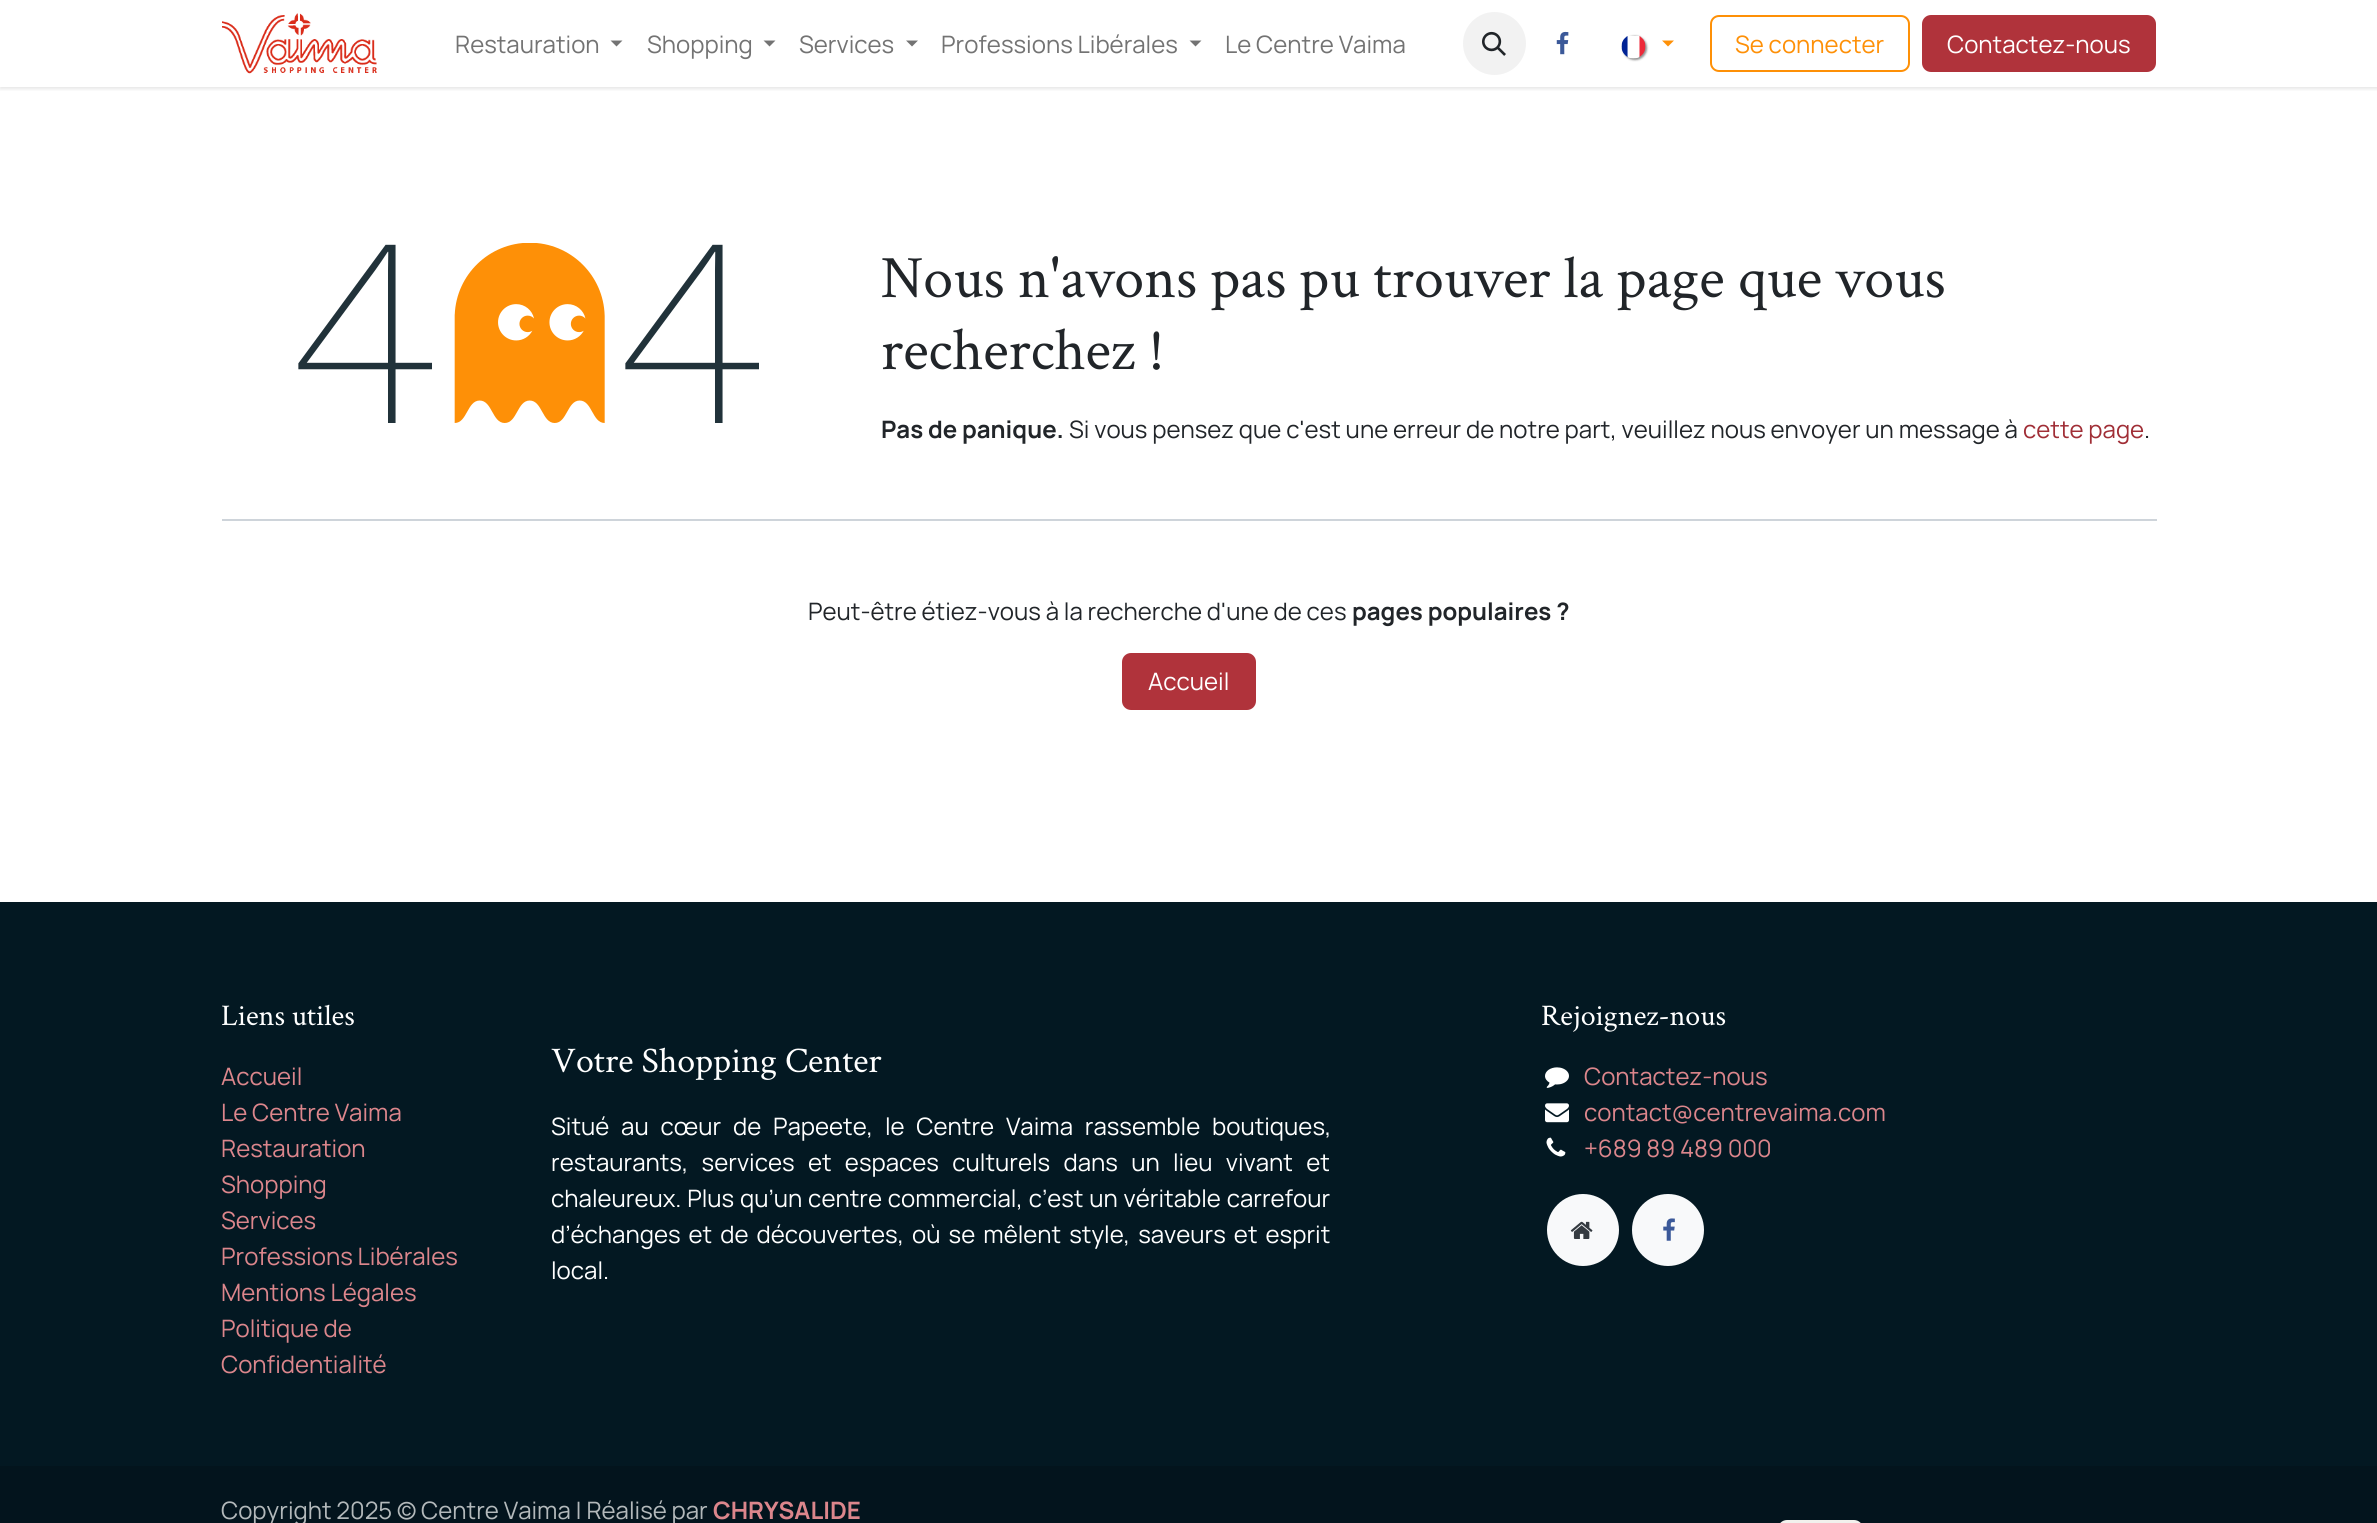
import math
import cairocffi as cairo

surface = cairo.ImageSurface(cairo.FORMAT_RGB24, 2377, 1523)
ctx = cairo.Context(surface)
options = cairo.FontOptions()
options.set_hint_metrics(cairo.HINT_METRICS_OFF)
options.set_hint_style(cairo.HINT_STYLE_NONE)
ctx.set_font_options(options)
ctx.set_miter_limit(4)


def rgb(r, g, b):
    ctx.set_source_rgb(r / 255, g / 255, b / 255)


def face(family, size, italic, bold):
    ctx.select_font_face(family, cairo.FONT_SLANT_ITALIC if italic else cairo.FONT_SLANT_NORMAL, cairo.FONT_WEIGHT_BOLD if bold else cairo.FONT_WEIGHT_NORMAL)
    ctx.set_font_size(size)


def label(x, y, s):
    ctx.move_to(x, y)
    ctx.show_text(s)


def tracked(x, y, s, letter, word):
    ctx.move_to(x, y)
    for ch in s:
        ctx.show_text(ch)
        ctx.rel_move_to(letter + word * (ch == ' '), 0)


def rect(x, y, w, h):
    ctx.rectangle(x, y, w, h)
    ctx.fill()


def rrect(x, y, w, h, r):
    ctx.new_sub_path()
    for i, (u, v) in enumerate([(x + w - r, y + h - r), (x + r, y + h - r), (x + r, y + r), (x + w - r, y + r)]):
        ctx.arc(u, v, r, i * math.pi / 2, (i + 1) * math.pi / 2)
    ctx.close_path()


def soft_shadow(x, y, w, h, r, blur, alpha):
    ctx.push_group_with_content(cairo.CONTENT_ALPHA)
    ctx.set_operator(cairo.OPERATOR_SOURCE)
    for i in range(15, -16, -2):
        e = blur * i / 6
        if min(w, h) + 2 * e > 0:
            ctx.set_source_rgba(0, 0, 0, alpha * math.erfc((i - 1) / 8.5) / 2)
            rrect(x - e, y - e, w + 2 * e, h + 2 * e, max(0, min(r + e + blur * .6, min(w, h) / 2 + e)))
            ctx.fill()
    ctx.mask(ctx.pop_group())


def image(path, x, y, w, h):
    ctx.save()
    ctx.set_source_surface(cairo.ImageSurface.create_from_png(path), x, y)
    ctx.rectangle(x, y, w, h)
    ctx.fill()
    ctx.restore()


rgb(255, 255, 255)
ctx.paint()
ctx.save()
ctx.rectangle(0, 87, 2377, 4)
ctx.clip()
rgb(0, 0, 0)
soft_shadow(0, 2, 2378, 87, 0, 2, 0.1)
ctx.restore()
image('image0.png', 222, 13, 155, 61)
face('Manrope', 24, 0, 0)
rgb(115, 115, 115)
label(455, 53, 'Restauration')
ctx.new_path()
ctx.move_to(610.5, 40.5)
ctx.line_to(622.5, 40.5)
ctx.line_to(616.5, 46.5)
ctx.close_path()
ctx.fill()
label(647, 53, 'Shopping')
ctx.new_path()
ctx.move_to(763.5, 40.5)
ctx.line_to(775.5, 40.5)
ctx.line_to(769.5, 46.5)
ctx.close_path()
ctx.fill()
label(799, 53, 'Services')
ctx.new_path()
ctx.move_to(906, 40.5)
ctx.line_to(918, 40.5)
ctx.line_to(912, 46.5)
ctx.close_path()
ctx.fill()
label(941, 53, 'Professions Libérales')
ctx.new_path()
ctx.move_to(1189.5, 40.5)
ctx.line_to(1201.5, 40.5)
ctx.line_to(1195.5, 46.5)
ctx.close_path()
ctx.fill()
label(1225, 53, 'Le Centre Vaima')
rgb(242, 242, 242)
ctx.new_path()
ctx.arc(1494.5, 43.5, 31.5, 0, 2 * math.pi)
ctx.fill()
image('image1.png', 1482, 31, 24, 25)
image('image2.png', 1556, 31, 13, 24)
rgb(0, 0, 0)
soft_shadow(1623, 36, 24, 24, 12, 1, 0.43)
image('image3.png', 1621, 36, 25, 23)
rgb(254, 144, 7)
ctx.new_path()
ctx.move_to(1662, 40.5)
ctx.line_to(1674, 40.5)
ctx.line_to(1668, 46.5)
ctx.close_path()
ctx.fill()
rrect(1711, 16, 198, 55, 8)
ctx.stroke()
label(1735, 53, 'Se connecter')
rgb(176, 51, 59)
rrect(1923, 16, 232, 55, 8)
ctx.fill_preserve()
ctx.stroke()
rgb(255, 255, 255)
label(1947, 53, 'Contactez-nous')
image('image4.png', 298, 243, 461, 180)
face('Crimson Text', 60, 0, 0)
rgb(33, 37, 41)
label(881, 297, 'Nous n\'avons pas pu trouver la page que vous')
label(881, 369, 'recherchez !')
face('Manrope', 24, 0, 1)
label(881, 438, 'Pas de panique.')
face('Manrope', 24, 0, 0)
label(1069, 438, 'Si vous pensez que c\'est une erreur de notre part, veuillez nous envoyer un message à')
rgb(160, 46, 54)
label(2023, 438, 'cette page')
rgb(33, 37, 41)
label(2144, 438, '.')
rgb(206, 212, 218)
rect(222, 519, 1935, 2)
rgb(33, 37, 41)
label(808, 620, 'Peut-être étiez-vous à la recherche d\'une de ces')
face('Manrope', 24, 0, 1)
label(1352, 620, 'pages populaires ?')
rgb(176, 51, 59)
rrect(1123, 654, 132, 55, 8)
ctx.fill_preserve()
ctx.stroke()
face('Manrope', 24, 0, 0)
rgb(255, 255, 255)
label(1148, 690, 'Accueil')
rgb(3, 24, 34)
rect(0, 902, 2377, 564)
face('Crimson Text', 30, 0, 0)
rgb(255, 255, 255)
label(221, 1025, 'Liens utiles')
face('Manrope', 24, 0, 0)
rgb(220, 134, 140)
label(221, 1085, 'Accueil')
label(221, 1121, 'Le Centre Vaima')
label(221, 1157, 'Restauration')
label(221, 1193, 'Shopping')
label(221, 1229, 'Services')
label(221, 1265, 'Professions Libérales')
label(221, 1301, 'Mentions Légales')
label(221, 1337, 'Politique de')
label(221, 1373, 'Confidentialité')
face('Crimson Text', 36, 0, 0)
rgb(255, 255, 255)
label(551, 1072, 'Votre Shopping Center')
face('Manrope', 24, 0, 0)
tracked(551, 1135, 'Situé au cœur de Papeete, le Centre Vaima rassemble boutiques,', 0, 7)
tracked(551, 1171, 'restaurants, services et espaces culturels dans un lieu vivant et', 0, 8.5)
tracked(551, 1207, 'chaleureux. Plus qu’un centre commercial, c’est un véritable carrefour', 0, 1)
tracked(551, 1243, 'd’échanges et de découvertes, où se mêlent style, saveurs et esprit', 0, 3.25)
label(551, 1279, 'local.')
face('Crimson Text', 30, 0, 0)
label(1541, 1025, 'Rejoignez-nous')
image('image5.png', 1545, 1067, 24, 21)
face('Manrope', 24, 0, 0)
rgb(220, 134, 140)
label(1584, 1085, 'Contactez-nous')
image('image6.png', 1545, 1103, 24, 20)
label(1584, 1121, 'contact@centrevaima.com')
image('image7.png', 1546, 1137, 20, 20)
label(1584, 1157, '+689 89 489 000')
rgb(248, 249, 250)
ctx.new_path()
ctx.arc(1583, 1230, 36, 0, 2 * math.pi)
ctx.fill()
image('image8.png', 1570, 1221, 23, 18)
ctx.arc(1668, 1230, 36, 0, 2 * math.pi)
ctx.fill()
image('image9.png', 1663, 1218, 12, 23)
rgb(3, 20, 29)
rect(0, 1466, 2377, 57)
rgb(179, 185, 187)
label(221, 1519, 'Copyright 2025 © Centre Vaima | Réalisé par')
face('Manrope', 24, 0, 1)
rgb(220, 134, 140)
label(713, 1519, 'CHRYSALIDE')
rgb(242, 241, 237)
ctx.new_path()
ctx.move_to(1787, 1520)
ctx.line_to(1854, 1520)
ctx.curve_to(1859, 1520, 1863, 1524, 1863, 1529)
ctx.line_to(1863, 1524)
ctx.line_to(1778, 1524)
ctx.line_to(1778, 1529)
ctx.curve_to(1778, 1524, 1782, 1520, 1787, 1520)
ctx.close_path()
ctx.fill()
surface.write_to_png('render.png')
